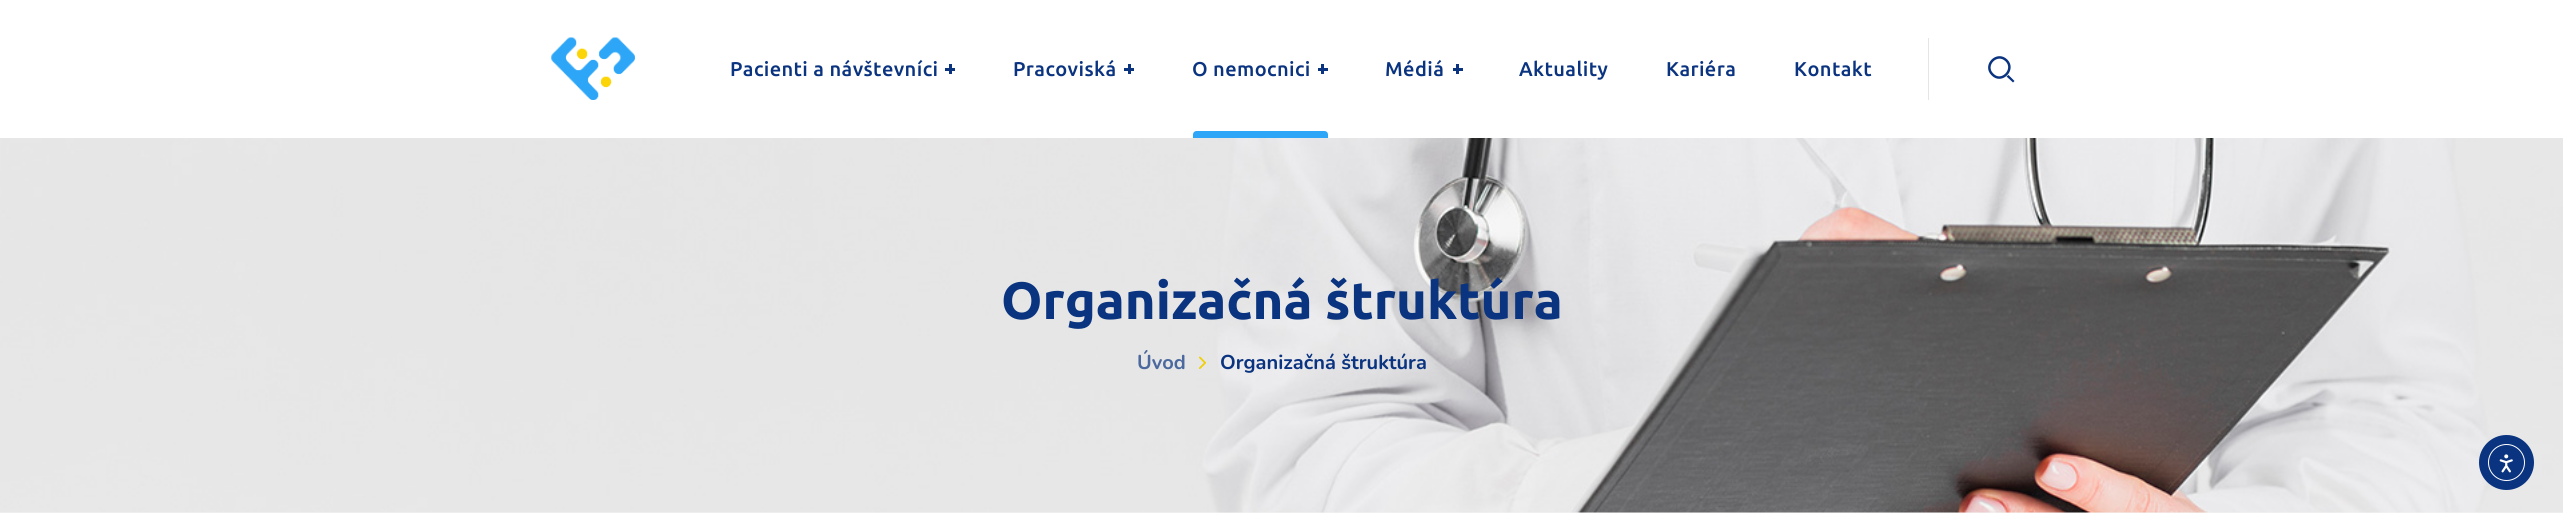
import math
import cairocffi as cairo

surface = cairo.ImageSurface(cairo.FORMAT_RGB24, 2563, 520)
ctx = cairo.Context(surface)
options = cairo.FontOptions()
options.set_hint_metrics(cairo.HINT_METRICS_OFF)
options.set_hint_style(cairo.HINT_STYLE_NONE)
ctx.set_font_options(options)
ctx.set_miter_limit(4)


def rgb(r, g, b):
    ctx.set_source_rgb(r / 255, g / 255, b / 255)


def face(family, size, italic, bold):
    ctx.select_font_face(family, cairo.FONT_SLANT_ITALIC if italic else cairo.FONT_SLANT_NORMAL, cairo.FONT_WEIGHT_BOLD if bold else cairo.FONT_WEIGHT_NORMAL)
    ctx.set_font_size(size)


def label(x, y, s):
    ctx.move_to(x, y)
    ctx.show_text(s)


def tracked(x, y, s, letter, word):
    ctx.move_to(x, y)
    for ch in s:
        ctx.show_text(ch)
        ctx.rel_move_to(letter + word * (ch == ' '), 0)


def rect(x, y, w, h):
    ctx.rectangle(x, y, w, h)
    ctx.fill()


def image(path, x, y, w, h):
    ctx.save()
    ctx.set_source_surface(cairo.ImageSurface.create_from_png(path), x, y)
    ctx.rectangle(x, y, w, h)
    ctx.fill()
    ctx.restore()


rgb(255, 255, 255)
ctx.paint()
image('image0.png', 551, 37, 84, 63)
face('Ubuntu Medium', 20, 0, 0)
rgb(10, 51, 128)
tracked(730, 76, 'Pacienti a návštevníci', 0.4, 0)
rect(945, 68, 10, 3)
rect(949, 64, 3, 10)
tracked(1013, 76, 'Pracoviská', 0.4, 0)
rect(1124, 68, 10, 3)
rect(1128, 64, 3, 10)
tracked(1192, 76, 'O nemocnici', 0.4, 0)
rect(1318, 68, 10, 3)
rect(1321, 64, 3, 10)
tracked(1385, 76, 'Médiá', 0.4, 0)
rect(1453, 68, 10, 3)
rect(1456, 64, 3, 10)
tracked(1519, 76, 'Aktuality', 0.4, 0)
tracked(1666, 76, 'Kariéra', 0.4, 0)
tracked(1794, 76, 'Kontakt', 0.4, 0)
rgb(46, 166, 247)
ctx.new_path()
ctx.move_to(1196.5, 131)
ctx.line_to(1324.5, 131)
ctx.curve_to(1326.5, 131, 1328, 132.5, 1328, 134.5)
ctx.line_to(1328, 138)
ctx.line_to(1193, 138)
ctx.line_to(1193, 134.5)
ctx.curve_to(1193, 132.5, 1194.5, 131, 1196.5, 131)
ctx.close_path()
ctx.fill()
rgb(229, 229, 229)
rect(1928, 38, 1, 62)
ctx.new_path()
ctx.move_to(2006.5, 60.5)
ctx.curve_to(2015.5, 69.5, 2001.5, 84, 1992.5, 74.5)
ctx.curve_to(1983, 65.5, 1997, 51, 2006.5, 60.5)
ctx.close_path()
rgb(10, 51, 128)
ctx.set_line_width(2.5)
ctx.stroke()
ctx.new_path()
ctx.move_to(2006.5, 76.5)
ctx.line_to(2008.5, 75)
ctx.line_to(2014.5, 81)
ctx.line_to(2013, 82.5)
ctx.close_path()
ctx.fill()
rgb(245, 245, 245)
rect(0, 512, 2563, 1)
image('image1.png', 0, 138, 2563, 375)
face('Ubuntu', 52.5, 0, 1)
rgb(10, 51, 128)
label(1001, 319, 'Organizačná štruktúra')
face('Nunito', 20, 0, 1)
rgb(76, 105, 159)
label(1137, 369, 'Úvod')
image('image2.png', 1199, 356, 7, 13)
rgb(10, 51, 128)
label(1220, 369, 'Organizačná štruktúra')
ctx.new_path()
ctx.arc(2506.5, 462.5, 27.5, 0, 2 * math.pi)
ctx.fill()
ctx.arc(2506.5, 462.5, 18, 0, 2 * math.pi)
rgb(255, 255, 255)
ctx.set_line_width(1)
ctx.stroke()
image('image3.png', 2499, 454, 14, 19)
surface.write_to_png('render.png')
